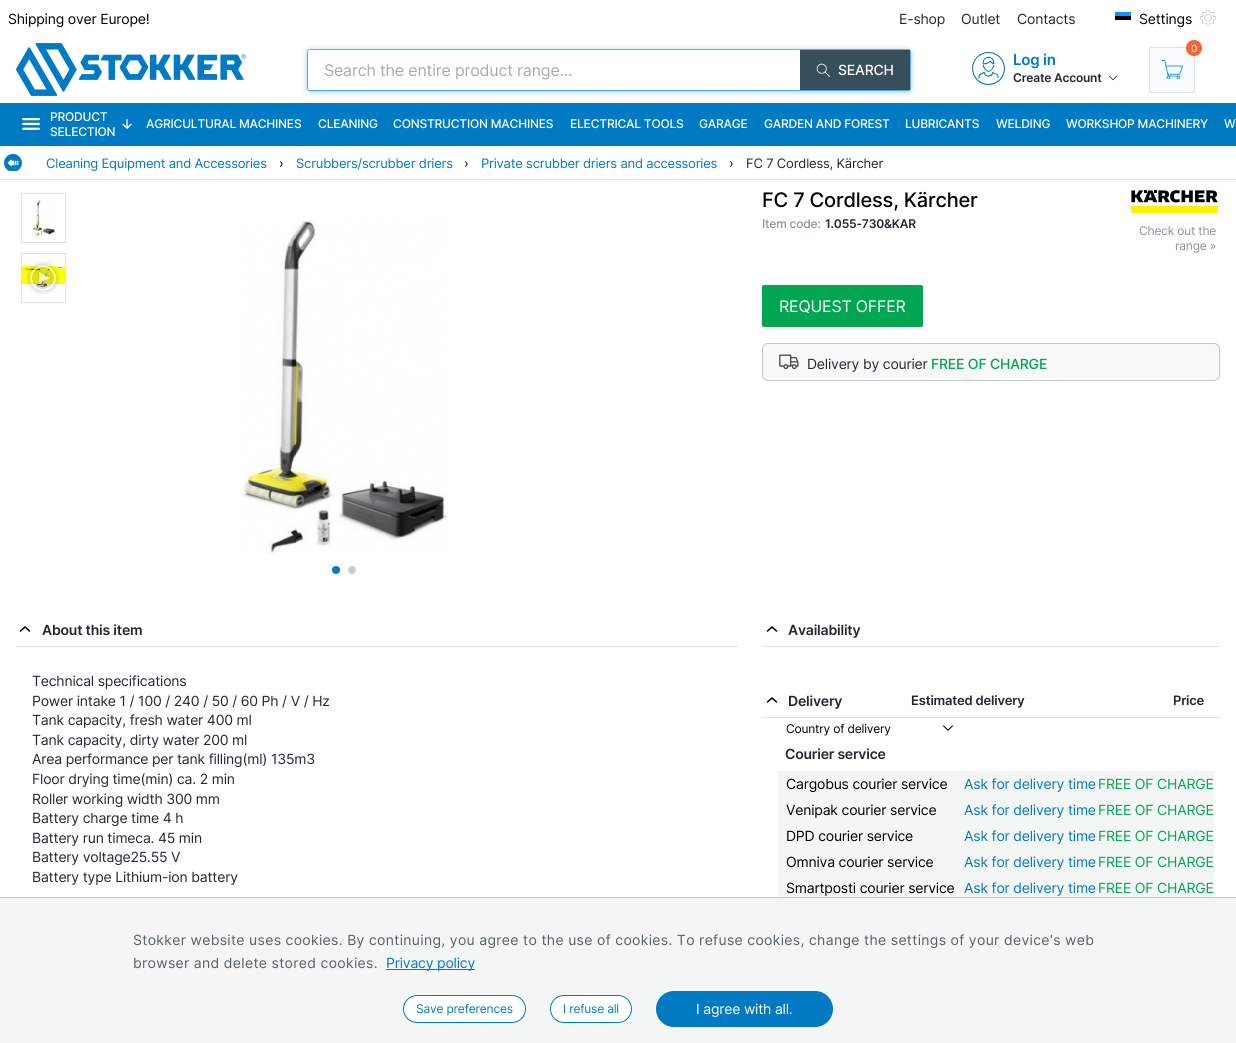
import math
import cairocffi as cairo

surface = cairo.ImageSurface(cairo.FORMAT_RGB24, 1236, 1043)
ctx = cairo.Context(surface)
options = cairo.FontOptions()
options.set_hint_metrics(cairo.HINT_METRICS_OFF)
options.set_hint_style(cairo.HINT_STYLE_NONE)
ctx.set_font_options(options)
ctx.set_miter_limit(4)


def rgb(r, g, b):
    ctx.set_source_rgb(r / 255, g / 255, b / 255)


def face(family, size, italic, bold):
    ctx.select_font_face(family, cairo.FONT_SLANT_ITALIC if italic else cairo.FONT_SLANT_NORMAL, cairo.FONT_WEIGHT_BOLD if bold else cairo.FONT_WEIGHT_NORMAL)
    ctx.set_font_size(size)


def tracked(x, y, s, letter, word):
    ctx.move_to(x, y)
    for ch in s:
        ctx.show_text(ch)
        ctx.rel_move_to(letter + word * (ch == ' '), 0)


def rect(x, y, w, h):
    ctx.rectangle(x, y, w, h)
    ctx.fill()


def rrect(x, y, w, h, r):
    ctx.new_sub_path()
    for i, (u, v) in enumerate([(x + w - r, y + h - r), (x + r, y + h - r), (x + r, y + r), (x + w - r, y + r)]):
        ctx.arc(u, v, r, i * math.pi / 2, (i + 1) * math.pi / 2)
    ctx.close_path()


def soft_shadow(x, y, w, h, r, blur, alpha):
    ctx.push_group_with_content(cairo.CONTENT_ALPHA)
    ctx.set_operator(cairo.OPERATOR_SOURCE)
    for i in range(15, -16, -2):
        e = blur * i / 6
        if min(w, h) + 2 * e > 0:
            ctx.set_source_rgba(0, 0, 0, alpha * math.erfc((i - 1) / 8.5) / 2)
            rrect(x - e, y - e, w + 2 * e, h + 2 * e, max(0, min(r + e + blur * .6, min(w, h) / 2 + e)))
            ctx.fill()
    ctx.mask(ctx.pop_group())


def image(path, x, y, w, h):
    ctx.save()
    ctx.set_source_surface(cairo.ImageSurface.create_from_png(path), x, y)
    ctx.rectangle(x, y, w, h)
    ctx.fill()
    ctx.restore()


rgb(255, 255, 255)
ctx.paint()
face('Inter', 14, 0, 0)
rgb(0, 0, 0)
tracked(8, 24, 'Shipping over Europe!', -0.2, 0)
rgb(38, 38, 51)
tracked(899, 24, 'E-shop', -0.2, 0)
tracked(961, 24, 'Outlet', -0.2, 0)
tracked(1017, 24, 'Contacts', -0.2, 0)
rgb(0, 0, 0)
rect(1115, 16, 16, 4)
rgb(18, 145, 255)
rect(1115, 12, 16, 4)
rgb(0, 0, 0)
tracked(1139, 24, 'Settings', -0.2, 0)
image('image0.png', 1200, 10, 16, 16)
image('image1.png', 16, 43, 230, 53)
rrect(307.5, 49.5, 603, 41, 2.5)
rgb(122, 186, 223)
ctx.set_line_width(1)
ctx.stroke()
rgb(0, 122, 194)
soft_shadow(308, 51, 602, 40, 2, 3, 0.56)
rgb(255, 255, 255)
rrect(308, 50, 512, 40, 2)
ctx.fill()
face('Inter', 16, 0, 0)
rgb(170, 170, 170)
tracked(324, 76, 'Search the entire product range...', -0.2, 0)
rgb(55, 78, 91)
rect(800, 50, 110, 40)
image('image2.png', 816, 63, 14, 14)
face('Inter Medium', 14, 0, 0)
rgb(255, 255, 255)
tracked(838, 75, 'SEARCH', -0.2, 0)
rgb(250, 251, 252)
rrect(1149.5, 47.5, 45, 45, 1.5)
ctx.fill_preserve()
rgb(222, 223, 224)
ctx.stroke()
rgb(255, 96, 53)
ctx.arc(1194, 48, 8, 0, 2 * math.pi)
ctx.fill()
face('Inter', 10, 0, 0)
rgb(255, 255, 255)
tracked(1191, 52, '0', -0.2, 0)
image('image3.png', 1161, 60, 22, 19)
image('image4.png', 972, 52, 33, 33)
face('Inter SemiBold', 15, 0, 0)
rgb(0, 122, 194)
tracked(1013, 65, 'Log in', -0.2, 0)
face('Inter SemiBold', 12, 0, 0)
rgb(38, 38, 51)
tracked(1013, 82, 'Create Account', -0.2, 0)
image('image5.png', 1109, 75, 8, 6)
rgb(0, 122, 194)
rect(0, 103, 1236, 43)
image('image6.png', 22, 118, 18, 12)
face('Inter Medium', 12, 0, 0)
rgb(255, 255, 255)
tracked(50, 121, 'PRODUCT', -0.2, 0)
tracked(50, 136, 'SELECTION', -0.2, 0)
image('image7.png', 122, 119, 10, 10)
tracked(146, 128, 'AGRICULTURAL MACHINES', -0.2, 0)
tracked(318, 128, 'CLEANING', -0.2, 0)
tracked(393, 128, 'CONSTRUCTION MACHINES', -0.2, 0)
tracked(570, 128, 'ELECTRICAL TOOLS', -0.2, 0)
tracked(699, 128, 'GARAGE', -0.2, 0)
tracked(764, 128, 'GARDEN AND FOREST', -0.2, 0)
tracked(905, 128, 'LUBRICANTS', -0.2, 0)
tracked(996, 128, 'WELDING', -0.2, 0)
tracked(1066, 128, 'WORKSHOP MACHINERY', -0.2, 0)
tracked(1224, 128, 'W', -0.2, 0)
rgb(227, 227, 227)
rect(0, 179, 1236, 1)
image('image8.png', 4, 154, 18, 17)
face('Inter', 13, 0, 0)
rgb(0, 122, 194)
tracked(46, 168, 'Cleaning Equipment and Accessories', -0.2, 0)
rgb(0, 0, 0)
tracked(279, 168, '›', -0.2, 0)
rgb(0, 122, 194)
tracked(296, 168, 'Scrubbers/scrubber driers', -0.2, 0)
rgb(0, 0, 0)
tracked(464, 168, '›', -0.2, 0)
rgb(0, 122, 194)
tracked(481, 168, 'Private scrubber driers and accessories', -0.2, 0)
rgb(0, 0, 0)
tracked(729, 168, '›', -0.2, 0)
rgb(38, 38, 51)
tracked(746, 168, 'FC 7 Cordless, Kärcher', -0.2, 0)
ctx.rectangle(21.5, 193.5, 44, 49)
rgb(227, 227, 227)
ctx.stroke()
image('image9.png', 32, 200, 23, 36)
ctx.rectangle(21.5, 253.5, 44, 49)
ctx.stroke()
image('image11.png', 22, 266, 43, 21)
image('image10.png', 26, 261, 34, 34)
image('image12.png', 242, 220, 206, 333)
rgb(0, 122, 194)
ctx.arc(336, 570, 4, 0, 2 * math.pi)
ctx.fill()
rgb(204, 204, 204)
ctx.arc(352, 570, 4, 0, 2 * math.pi)
ctx.fill()
face('Inter Medium', 20, 0, 0)
rgb(0, 0, 0)
tracked(762, 207, 'FC 7 Cordless, Kärcher', -0.2, 0)
face('Inter Medium', 12, 0, 0)
rgb(135, 145, 151)
tracked(762, 228, 'Item code:', -0.2, 0)
face('Inter SemiBold', 12, 0, 0)
rgb(38, 38, 51)
tracked(825, 228, '1.055-730&KAR', -0.2, 0)
image('image13.png', 1131, 190, 87, 23)
face('Inter', 12, 0, 0)
rgb(135, 145, 151)
tracked(1139, 235, 'Check out the', -0.2, 0)
tracked(1175, 250, 'range »', -0.2, 0)
rgb(0, 166, 81)
rrect(762.5, 285.5, 160, 41, 1.5)
ctx.fill_preserve()
ctx.stroke()
face('Inter', 16, 0, 0)
rgb(255, 255, 255)
tracked(779, 312, 'REQUEST OFFER', -0.2, 0)
rgb(249, 249, 249)
rrect(762.5, 343.5, 457, 37, 5.5)
ctx.fill_preserve()
rgb(194, 199, 203)
ctx.stroke()
image('image14.png', 779, 354, 20, 16)
face('Inter', 14, 0, 0)
rgb(38, 38, 51)
tracked(807, 369, 'Delivery by courier', -0.2, 0)
face('Inter Medium', 14, 0, 0)
rgb(0, 166, 81)
tracked(931, 369, 'FREE OF CHARGE', -0.2, 0)
rgb(227, 227, 227)
rect(16, 646, 722, 1)
ctx.new_path()
ctx.move_to(29.5, 631)
ctx.line_to(25, 627)
ctx.line_to(20.5, 631)
rgb(0, 0, 0)
ctx.set_line_width(1.5)
ctx.set_line_cap(cairo.LINE_CAP_ROUND)
ctx.set_line_join(cairo.LINE_JOIN_ROUND)
ctx.stroke()
face('Inter SemiBold', 14, 0, 0)
rgb(38, 38, 51)
tracked(42, 635, 'About this item', -0.2, 0)
face('Inter', 14, 0, 0)
tracked(32, 686, 'Technical specifications', -0.2, 0)
tracked(32, 706, 'Power intake 1 / 100 / 240 / 50 / 60 Ph / V / Hz', -0.2, 0)
tracked(32, 725, 'Tank capacity, fresh water 400 ml', -0.2, 0)
tracked(32, 745, 'Tank capacity, dirty water 200 ml', -0.2, 0)
tracked(32, 764, 'Area performance per tank filling(ml) 135m3', -0.2, 0)
tracked(32, 784, 'Floor drying time(min) ca. 2 min', -0.2, 0)
tracked(32, 804, 'Roller working width 300 mm', -0.2, 0)
tracked(32, 823, 'Battery charge time 4 h', -0.2, 0)
tracked(32, 843, 'Battery run timeca. 45 min', -0.2, 0)
tracked(32, 862, 'Battery voltage25.55 V', -0.2, 0)
tracked(32, 882, 'Battery type Lithium-ion battery', -0.2, 0)
rgb(227, 227, 227)
rect(762, 646, 458, 1)
ctx.new_path()
ctx.move_to(776.5, 631)
ctx.line_to(772, 627)
ctx.line_to(767.5, 631)
rgb(0, 0, 0)
ctx.stroke()
face('Inter SemiBold', 14, 0, 0)
rgb(38, 38, 51)
tracked(788, 635, 'Availability', -0.2, 0)
rgb(227, 227, 227)
rect(762, 717, 458, 1)
ctx.new_path()
ctx.move_to(776.5, 702)
ctx.line_to(772, 698)
ctx.line_to(767.5, 702)
rgb(0, 0, 0)
ctx.stroke()
rgb(38, 38, 51)
tracked(788, 706, 'Delivery', -0.2, 0)
face('Inter SemiBold', 13, 0, 0)
tracked(911, 705, 'Estimated delivery', -0.2, 0)
tracked(1173, 705, 'Price', -0.2, 0)
face('Inter', 12, 0, 0)
rgb(0, 0, 0)
tracked(786, 733, 'Country of delivery', -0.2, 0)
image('image15.png', 943, 725, 10, 6)
face('Inter SemiBold', 14, 0, 0)
rgb(38, 38, 51)
tracked(785, 759, 'Courier service', -0.2, 0)
rgb(244, 246, 246)
rect(778, 771, 436, 126)
face('Inter', 14, 0, 0)
rgb(0, 0, 0)
tracked(786, 789, 'Cargobus courier service', -0.2, 0)
rgb(0, 122, 194)
tracked(964, 789, 'Ask for delivery time', -0.2, 0)
rgb(0, 166, 81)
tracked(1098, 789, 'FREE OF CHARGE', -0.2, 0)
rgb(0, 0, 0)
tracked(786, 815, 'Venipak courier service', -0.2, 0)
rgb(0, 122, 194)
tracked(964, 815, 'Ask for delivery time', -0.2, 0)
rgb(0, 166, 81)
tracked(1098, 815, 'FREE OF CHARGE', -0.2, 0)
rgb(0, 0, 0)
tracked(786, 841, 'DPD courier service', -0.2, 0)
rgb(0, 122, 194)
tracked(964, 841, 'Ask for delivery time', -0.2, 0)
rgb(0, 166, 81)
tracked(1098, 841, 'FREE OF CHARGE', -0.2, 0)
rgb(0, 0, 0)
tracked(786, 867, 'Omniva courier service', -0.2, 0)
rgb(0, 122, 194)
tracked(964, 867, 'Ask for delivery time', -0.2, 0)
rgb(0, 166, 81)
tracked(1098, 867, 'FREE OF CHARGE', -0.2, 0)
rgb(0, 0, 0)
tracked(786, 893, 'Smartposti courier service', -0.2, 0)
rgb(0, 122, 194)
tracked(964, 893, 'Ask for delivery time', -0.2, 0)
rgb(0, 166, 81)
tracked(1098, 893, 'FREE OF CHARGE', -0.2, 0)
rgb(244, 246, 246)
rect(0, 898, 1236, 145)
rgb(195, 197, 197)
rect(0, 897, 1236, 1)
rgb(86, 97, 104)
tracked(133, 945, 'Stokker website uses cookies. By continuing, you agree to the use of cookies. To refuse cookies, change the settings of your device\'s web', 0.32, 0)
tracked(133, 968, 'browser and delete stored cookies.', 0.32, 0)
rgb(0, 122, 194)
rect(386, 969, 89, 1)
tracked(386, 968, 'Privacy policy', -0.2, 0)
rgb(255, 255, 255)
rrect(403.5, 995.5, 122, 27, 13.5)
ctx.fill_preserve()
rgb(0, 122, 194)
ctx.set_line_width(1)
ctx.set_line_cap(cairo.LINE_CAP_BUTT)
ctx.set_line_join(cairo.LINE_JOIN_MITER)
ctx.stroke()
face('Inter', 12, 0, 0)
tracked(416, 1013, 'Save preferences', -0.2, 0)
rgb(255, 255, 255)
rrect(550.5, 995.5, 81, 27, 13.5)
ctx.fill_preserve()
rgb(0, 122, 194)
ctx.stroke()
tracked(563, 1013, 'I refuse all', -0.2, 0)
rrect(656, 991, 177, 36, 18)
ctx.fill()
face('Inter', 14, 0, 0)
rgb(255, 255, 255)
tracked(696, 1014, 'I agree with all.', -0.2, 0)
surface.write_to_png('render.png')
